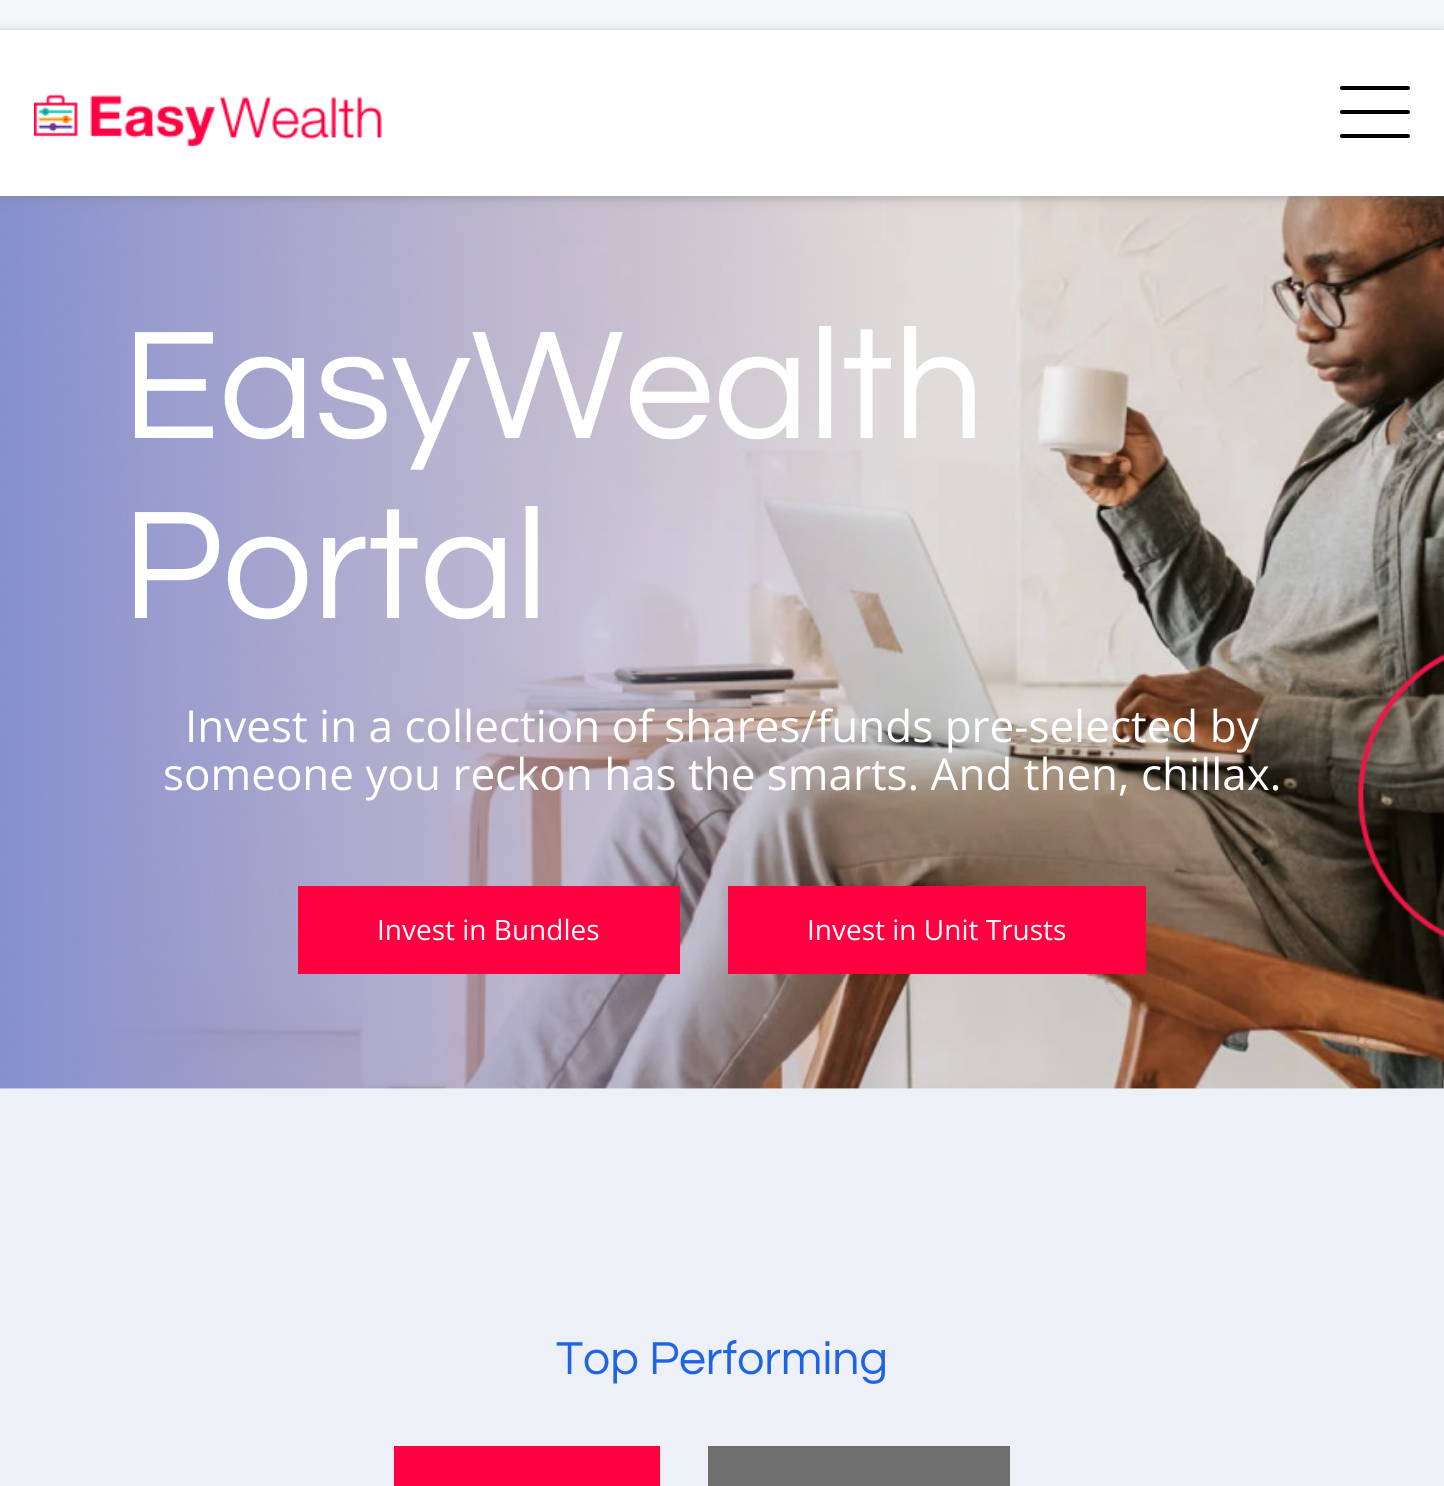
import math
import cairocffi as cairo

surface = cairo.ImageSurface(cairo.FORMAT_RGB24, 1444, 1486)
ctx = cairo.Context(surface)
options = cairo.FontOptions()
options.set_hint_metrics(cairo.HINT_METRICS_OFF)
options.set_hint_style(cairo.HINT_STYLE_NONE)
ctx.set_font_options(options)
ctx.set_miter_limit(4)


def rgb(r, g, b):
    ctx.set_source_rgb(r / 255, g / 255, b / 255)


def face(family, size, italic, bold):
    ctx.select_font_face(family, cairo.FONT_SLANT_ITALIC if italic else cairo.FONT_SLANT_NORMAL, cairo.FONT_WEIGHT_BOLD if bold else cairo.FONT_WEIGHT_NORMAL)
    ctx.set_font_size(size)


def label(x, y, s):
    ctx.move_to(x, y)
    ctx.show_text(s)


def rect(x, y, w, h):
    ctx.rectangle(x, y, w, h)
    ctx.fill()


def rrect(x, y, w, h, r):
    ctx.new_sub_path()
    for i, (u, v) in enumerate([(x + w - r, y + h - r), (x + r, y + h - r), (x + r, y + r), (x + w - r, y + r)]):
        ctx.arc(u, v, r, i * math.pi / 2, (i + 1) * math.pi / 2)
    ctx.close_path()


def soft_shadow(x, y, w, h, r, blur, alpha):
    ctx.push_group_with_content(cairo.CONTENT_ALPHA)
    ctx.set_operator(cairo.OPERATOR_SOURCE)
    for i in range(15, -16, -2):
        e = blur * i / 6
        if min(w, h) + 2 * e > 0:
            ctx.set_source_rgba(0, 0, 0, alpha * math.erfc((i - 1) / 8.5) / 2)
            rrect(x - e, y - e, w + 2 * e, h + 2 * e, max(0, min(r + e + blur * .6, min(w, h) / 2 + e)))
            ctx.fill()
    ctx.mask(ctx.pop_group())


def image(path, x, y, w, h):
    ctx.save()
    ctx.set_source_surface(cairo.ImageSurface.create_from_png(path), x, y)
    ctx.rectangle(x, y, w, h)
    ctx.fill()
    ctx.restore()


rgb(237, 241, 247)
ctx.paint()
rgb(244, 246, 247)
rect(0, 0, 1444, 30)
image('image1.png', 0, 196, 1444, 893)
rgb(125, 125, 125)
soft_shadow(0, 32, 1444, 166, 0, 5, 0.5)
rgb(255, 255, 255)
rect(0, 30, 1444, 166)
image('image0.png', 34, 94, 348, 52)
rgb(0, 0, 0)
rrect(1340, 86, 70, 4, 2)
ctx.fill()
rrect(1340, 110, 70, 4, 2)
ctx.fill()
rrect(1340, 134, 70, 4, 2)
ctx.fill()
face('Questrial', 160, 0, 0)
rgb(255, 255, 255)
label(122, 438, 'EasyWealth')
label(122, 618, 'Portal')
face('Open Sans', 44, 0, 0)
label(185, 742, 'Invest in a collection of shares/funds pre-selected by')
label(163, 790, 'someone you reckon has the smarts. And then, chillax.')
rgb(255, 0, 65)
rect(298, 886, 382, 88)
face('Open Sans', 28, 0, 0)
rgb(255, 255, 255)
label(377, 940, 'Invest in Bundles')
rgb(255, 0, 65)
rect(728, 886, 418, 88)
rgb(255, 255, 255)
label(807, 940, 'Invest in Unit Trusts')
face('Questrial', 48, 0, 0)
rgb(32, 100, 230)
label(556, 1374, 'Top Performing')
rgb(255, 0, 65)
rect(394, 1446, 266, 40)
rgb(110, 110, 110)
rect(708, 1446, 302, 40)
surface.write_to_png('render.png')
